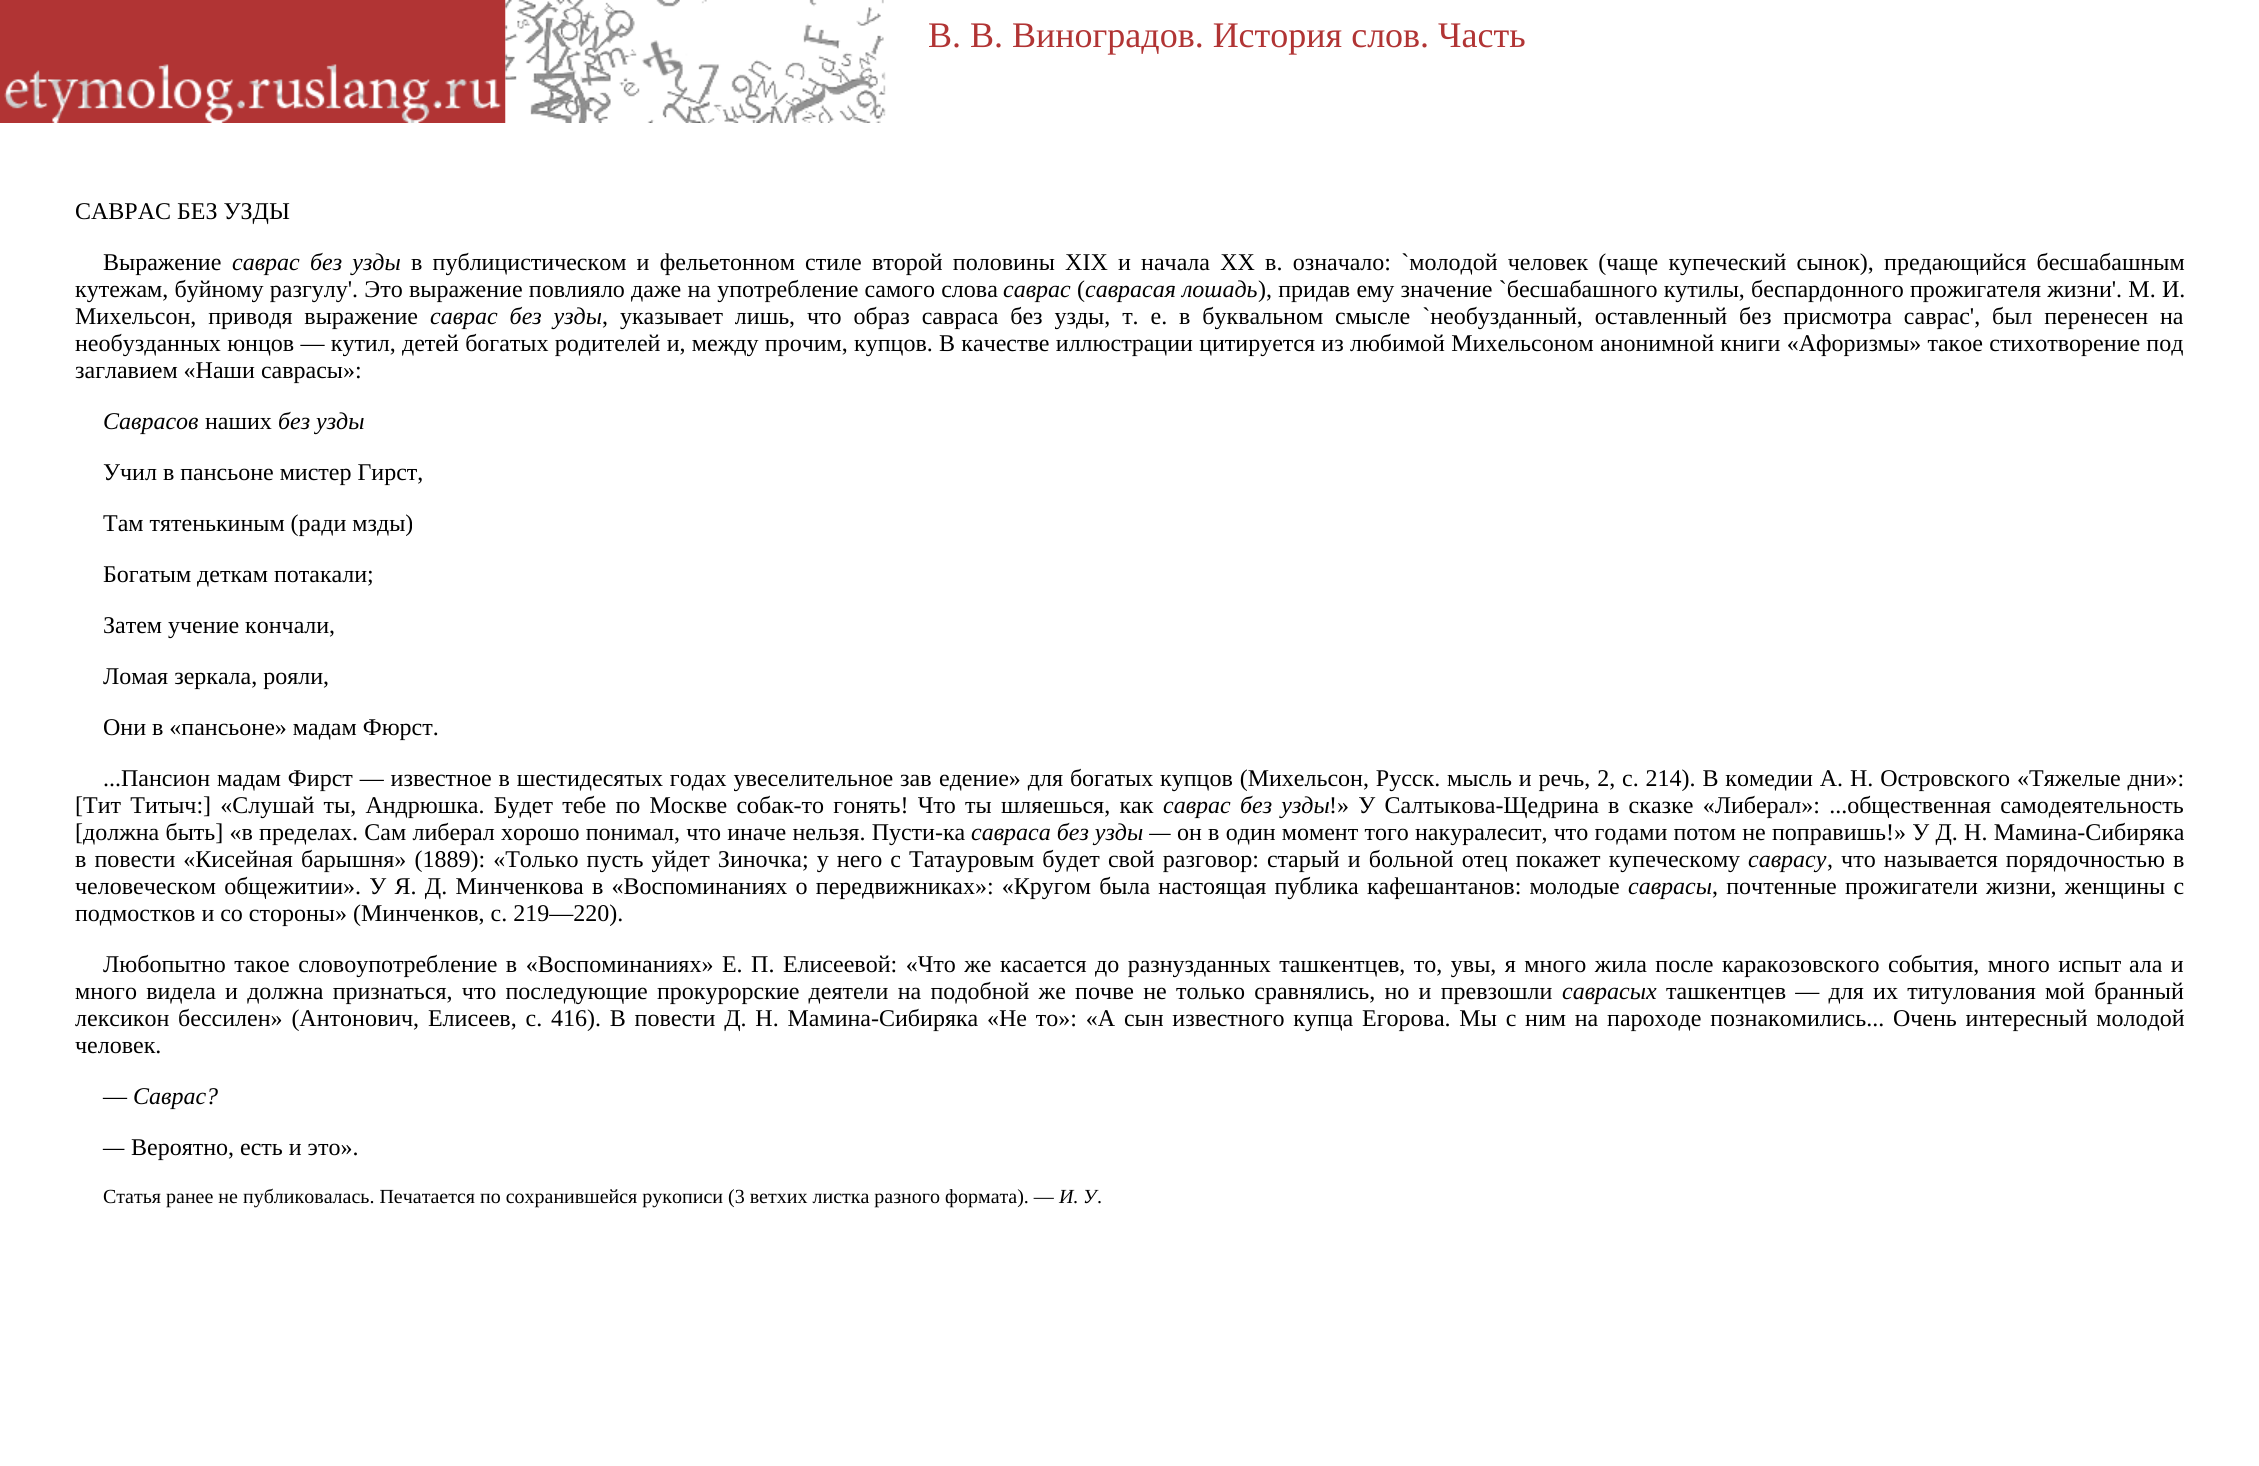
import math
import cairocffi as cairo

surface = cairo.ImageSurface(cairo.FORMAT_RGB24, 2259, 1466)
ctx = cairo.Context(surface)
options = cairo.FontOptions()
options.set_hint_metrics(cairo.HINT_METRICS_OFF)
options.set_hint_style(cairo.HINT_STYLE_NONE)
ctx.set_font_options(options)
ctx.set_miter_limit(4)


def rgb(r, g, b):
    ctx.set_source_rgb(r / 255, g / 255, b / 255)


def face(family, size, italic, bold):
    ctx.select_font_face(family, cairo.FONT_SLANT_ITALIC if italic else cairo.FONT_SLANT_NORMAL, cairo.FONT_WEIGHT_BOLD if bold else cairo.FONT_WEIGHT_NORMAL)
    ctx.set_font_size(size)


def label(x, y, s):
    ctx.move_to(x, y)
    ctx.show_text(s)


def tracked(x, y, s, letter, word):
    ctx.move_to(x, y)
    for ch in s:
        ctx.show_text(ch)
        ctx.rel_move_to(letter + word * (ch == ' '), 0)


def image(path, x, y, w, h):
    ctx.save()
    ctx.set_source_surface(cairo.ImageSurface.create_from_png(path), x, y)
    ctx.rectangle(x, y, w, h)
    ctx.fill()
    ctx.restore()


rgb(255, 255, 255)
ctx.paint()
image('image0.png', 0, 0, 506, 123)
image('image1.png', 505, 0, 381, 123)
face('Liberation Serif', 36, 0, 0)
rgb(177, 52, 52)
label(928, 47, 'В. В. Виноградов. История слов. Часть')
face('Liberation Serif', 24, 0, 0)
rgb(0, 0, 0)
label(75, 219, 'САВРАС БЕЗ УЗДЫ')
label(103, 270, 'Выражение')
face('Liberation Serif', 24, 1, 0)
tracked(232, 270, 'саврас без узды', 0, 4.25)
face('Liberation Serif', 24, 0, 0)
tracked(411, 270, 'в публицистическом и фельетонном стиле второй половины XIX и начала XX в. означало: `молодой человек (чаще купеческий сынок), предающийся бесшабашным', 0, 4.25)
tracked(75, 297, 'кутежам, буйному разгулу\'. Это выражение повлияло даже на употребление самого слова', 0, 0.25)
face('Liberation Serif', 24, 1, 0)
label(1003, 297, 'саврас')
face('Liberation Serif', 24, 0, 0)
label(1077, 297, '(')
face('Liberation Serif', 24, 1, 0)
label(1085, 297, 'саврасая лошадь')
face('Liberation Serif', 24, 0, 0)
tracked(1258, 297, '), придав ему значение `бесшабашного кутилы, беспардонного прожигателя жизни\'. М. И.', 0, 0.25)
tracked(75, 324, 'Михельсон, приводя выражение', 0, 5.9)
face('Liberation Serif', 24, 1, 0)
tracked(430, 324, 'саврас без узды', 0, 5.9)
face('Liberation Serif', 24, 0, 0)
tracked(602, 324, ', указывает лишь, что образ савраса без узды, т. е. в буквальном смысле `необузданный, оставленный без присмотра саврас\', был перенесен на', 0, 5.9)
tracked(75, 351, 'необузданных юнцов — кутил, детей богатых родителей и, между прочим, купцов. В качестве иллюстрации цитируется из любимой Михельсоном анонимной книги «Афоризмы» такое стихотворение под', 0, 0.3)
label(75, 378, 'заглавием «Наши саврасы»:')
face('Liberation Serif', 24, 1, 0)
label(103, 429, 'Саврасов')
face('Liberation Serif', 24, 0, 0)
label(205, 429, 'наших')
face('Liberation Serif', 24, 1, 0)
label(278, 429, 'без узды')
face('Liberation Serif', 24, 0, 0)
label(103, 480, 'Учил в пансьоне мистер Гирст,')
label(103, 531, 'Там тятенькиным (ради мзды)')
label(103, 582, 'Богатым деткам потакали;')
label(103, 633, 'Затем учение кончали,')
label(103, 684, 'Ломая зеркала, рояли,')
label(103, 735, 'Они в «пансьоне» мадам Фюрст.')
tracked(103, 786, '...Пансион мадам Фирст — известное в шестидесятых годах увеселительное зав', 0, 0.9)
tracked(939, 786, 'едение» для богатых купцов (Михельсон, Русск. мысль и речь, 2, с. 214). В комедии А. Н. Островского «Тяжелые дни»:', 0, 0.9)
tracked(75, 813, '[Тит Титыч:] «Слушай ты, Андрюшка. Будет тебе по Москве собак-то гонять! Что ты шляешься, как', 0, 3.25)
face('Liberation Serif', 24, 1, 0)
tracked(1163, 813, 'саврас без узды', 0, 3.25)
face('Liberation Serif', 24, 0, 0)
tracked(1329, 813, '!» У Салтыкова-Щедрина в сказке «Либерал»: ...общественная самодеятельность', 0, 3.25)
tracked(75, 840, '[должна быть] «в пределах. Сам либерал хорошо понимал, что иначе нельзя. Пусти-ка', 0, 0.25)
face('Liberation Serif', 24, 1, 0)
label(971, 840, 'савраса без узды —')
face('Liberation Serif', 24, 0, 0)
tracked(1177, 840, 'он в один момент того накуралесит, что годами потом не поправишь!» У Д. Н. Мамина-Сибиряка', 0, 0.25)
tracked(75, 867, 'в повести «Кисейная барышня» (1889): «Только пусть уйдет Зиночка; у него с Татауровым будет свой разговор: старый и больной отец покажет купеческому', 0, 2.1)
face('Liberation Serif', 24, 1, 0)
label(1748, 867, 'саврасу')
face('Liberation Serif', 24, 0, 0)
tracked(1827, 867, ', что называется порядочностью в', 0, 2.1)
tracked(75, 894, 'человеческом общежитии». У Я. Д. Минченкова в «Воспоминаниях о передвижниках»: «Кругом была настоящая публика кафешантанов: молодые', 0, 2.25)
face('Liberation Serif', 24, 1, 0)
label(1628, 894, 'саврасы')
face('Liberation Serif', 24, 0, 0)
tracked(1712, 894, ', почтенные прожигатели жизни, женщины с', 0, 2.25)
label(75, 921, 'подмостков и со стороны» (Минченков, с. 219—220).')
tracked(103, 972, 'Любопытно такое словоупотребление в «Воспоминаниях» Е. П. Елисеевой: «Что же касается до разнузданных ташкентцев, то, увы, я много жила после каракозовского события, много испыт', 0, 2.5)
tracked(2129, 972, 'ала и', 0, 2.5)
tracked(75, 999, 'много видела и должна признаться, что последующие прокурорские деятели на подобной же почве не только сравнялись, но и превзошли', 0, 3.25)
face('Liberation Serif', 24, 1, 0)
label(1562, 999, 'саврасых')
face('Liberation Serif', 24, 0, 0)
tracked(1666, 999, 'ташкентцев — для их титулования мой бранный', 0, 3.25)
tracked(75, 1026, 'лексикон бессилен» (Антонович, Елисеев, с. 416). В повести Д. Н. Мамина-Сибиряка «Не то»: «А сын известного купца Егорова. Мы с ним на пароходе познакомились... Очень интересный молодой', 0, 2.8)
label(75, 1053, 'человек.')
label(103, 1104, '—')
face('Liberation Serif', 24, 1, 0)
label(133, 1104, 'Саврас?')
label(103, 1155, '—')
face('Liberation Serif', 24, 0, 0)
label(131, 1155, 'Вероятно, есть и это».')
face('Liberation Serif', 20, 0, 0)
label(103, 1203, 'Статья ранее не публиковалась. Печатается по сохранившейся рукописи (3 ветхих листка разного формата). —')
face('Liberation Serif', 20, 1, 0)
label(1059, 1203, 'И')
face('Liberation Serif', 20, 0, 0)
label(1073, 1203, '.')
face('Liberation Serif', 20, 1, 0)
label(1083, 1203, 'У')
face('Liberation Serif', 20, 0, 0)
label(1097, 1203, '.')
surface.write_to_png('render.png')
